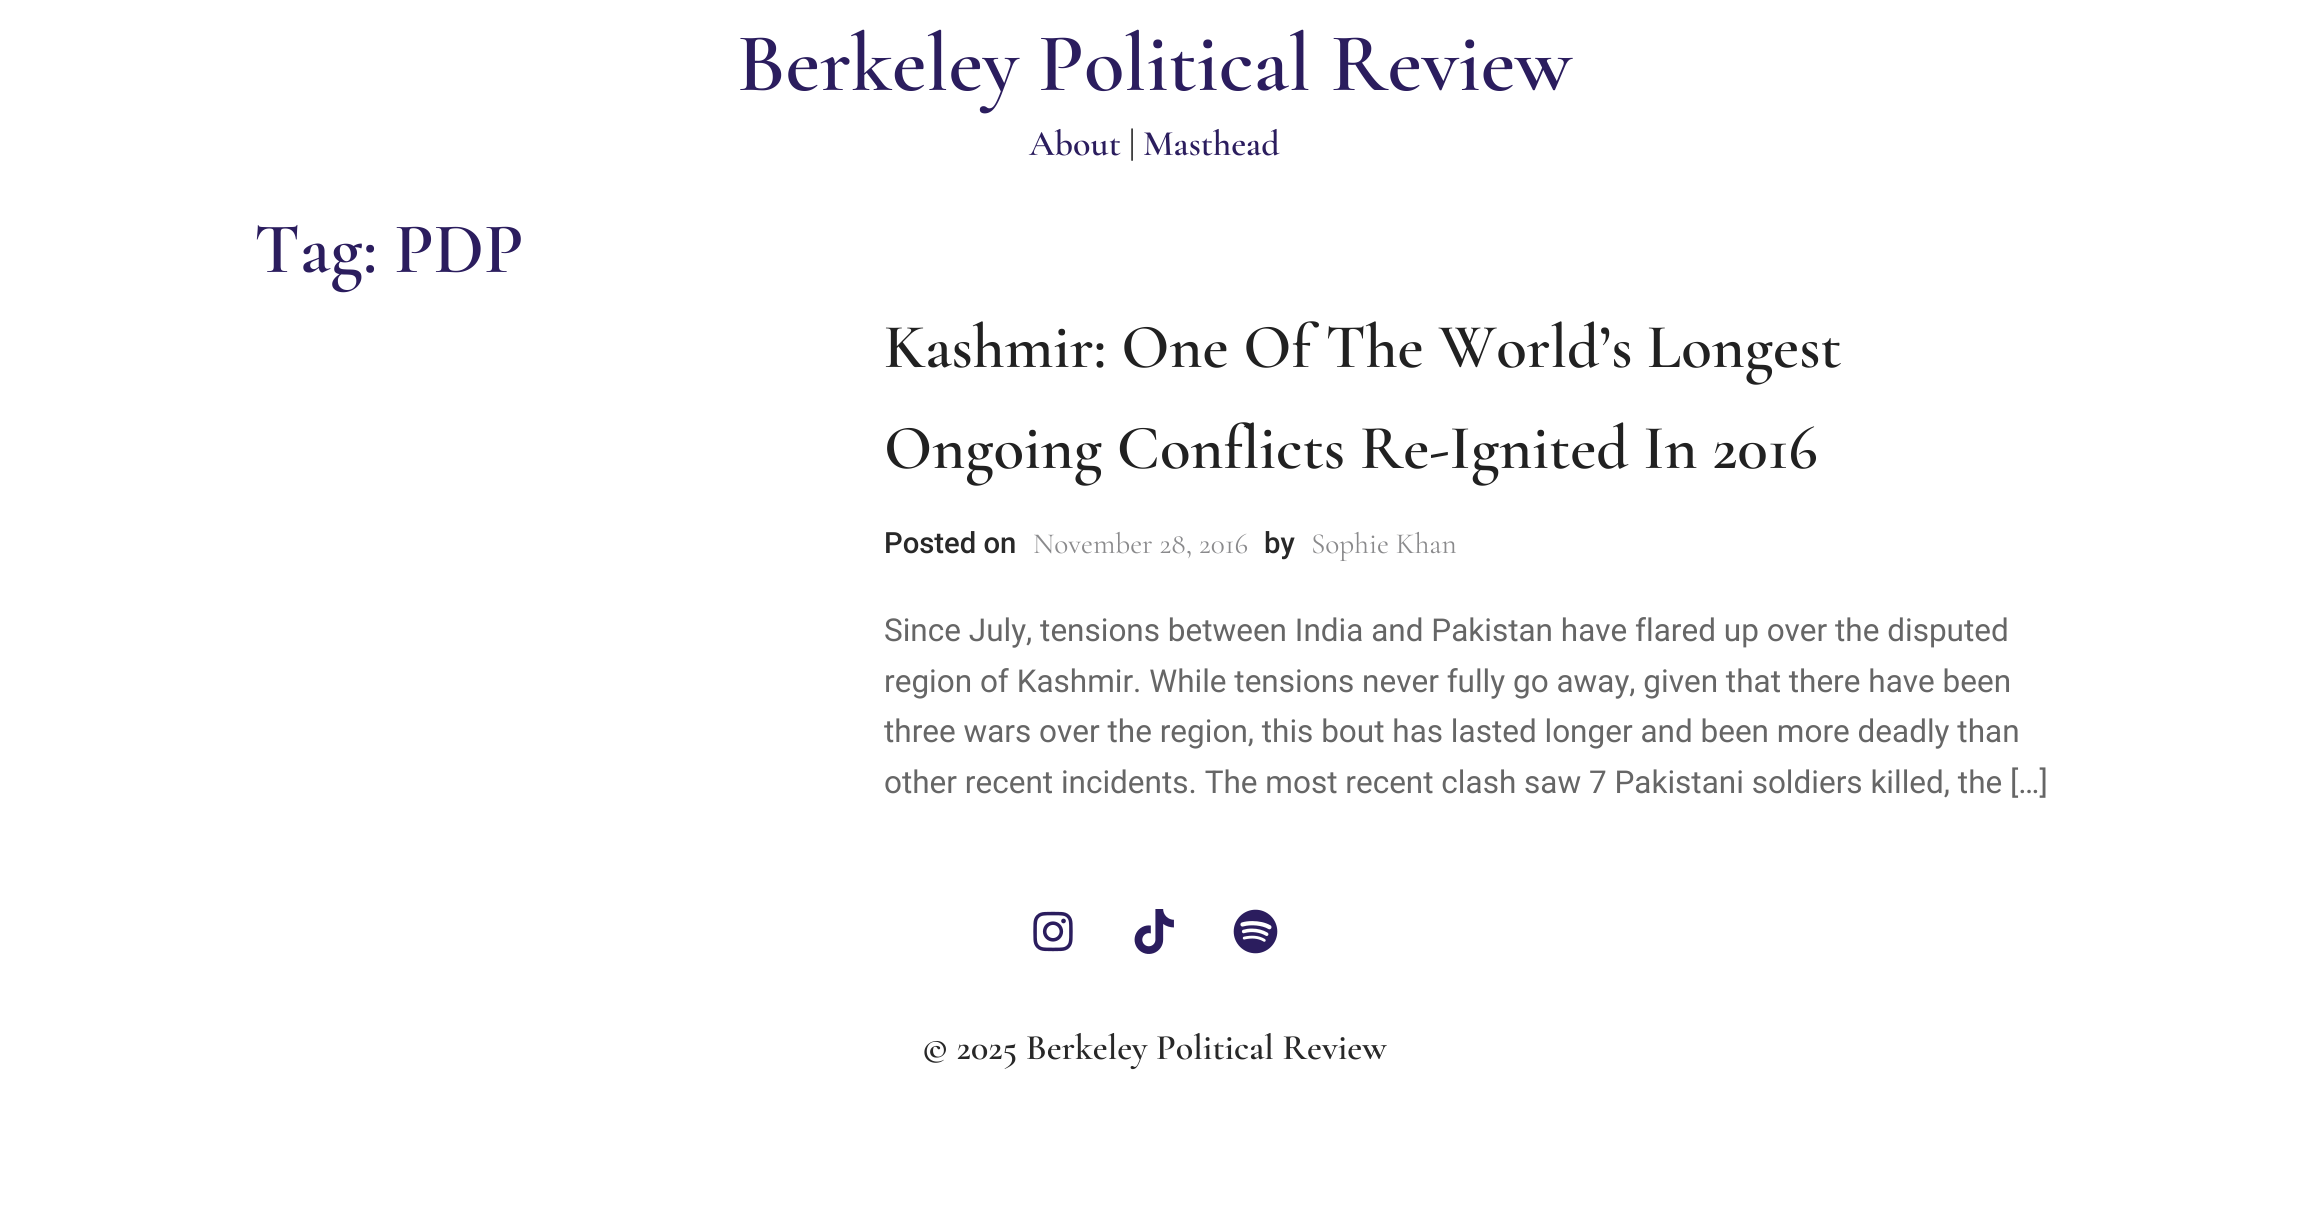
import math
import cairocffi as cairo

surface = cairo.ImageSurface(cairo.FORMAT_RGB24, 2308, 1220)
ctx = cairo.Context(surface)
options = cairo.FontOptions()
options.set_hint_metrics(cairo.HINT_METRICS_OFF)
options.set_hint_style(cairo.HINT_STYLE_NONE)
ctx.set_font_options(options)
ctx.set_miter_limit(4)


def rgb(r, g, b):
    ctx.set_source_rgb(r / 255, g / 255, b / 255)


def face(family, size, italic, bold):
    ctx.select_font_face(family, cairo.FONT_SLANT_ITALIC if italic else cairo.FONT_SLANT_NORMAL, cairo.FONT_WEIGHT_BOLD if bold else cairo.FONT_WEIGHT_NORMAL)
    ctx.set_font_size(size)


def label(x, y, s):
    ctx.move_to(x, y)
    ctx.show_text(s)


def image(path, x, y, w, h):
    ctx.save()
    ctx.set_source_surface(cairo.ImageSurface.create_from_png(path), x, y)
    ctx.rectangle(x, y, w, h)
    ctx.fill()
    ctx.restore()


rgb(255, 255, 255)
ctx.paint()
face('Cormorant Garamond SemiBold', 83.25, 0, 0)
rgb(43, 29, 94)
label(737, 90, 'Berkeley Political Review')
face('Cormorant Garamond SemiBold', 36, 0, 0)
label(1029, 155, 'About')
rgb(40, 40, 40)
label(1129, 155, '|')
rgb(43, 29, 94)
label(1143, 155, 'Masthead')
face('Cormorant Garamond SemiBold', 72, 0, 0)
label(254, 272, 'Tag: PDP')
face('Cormorant Garamond SemiBold', 63, 0, 0)
rgb(33, 33, 33)
label(884, 367, 'Kashmir: One Of The World’s Longest')
label(884, 468, 'Ongoing Conflicts Re-Ignited In 2016')
face('Roboto Medium', 29.25, 0, 0)
rgb(40, 40, 40)
label(884, 553, 'Posted on')
face('Cormorant Garamond', 29.25, 0, 0)
rgb(138, 138, 140)
label(1033, 553, 'November 28, 2016')
face('Roboto Medium', 29.25, 0, 0)
rgb(40, 40, 40)
label(1264, 553, 'by')
face('Cormorant Garamond', 29.25, 0, 0)
rgb(138, 138, 140)
label(1311, 553, 'Sophie Khan')
face('Roboto', 31.5, 0, 0)
rgb(102, 102, 102)
label(884, 641, 'Since July, tensions between India and Pakistan have flared up over the disputed')
label(884, 692, 'region of Kashmir. While tensions never fully go away, given that there have been')
label(884, 742, 'three wars over the region, this bout has lasted longer and been more deadly than')
label(884, 793, 'other recent incidents. The most recent clash saw 7 Pakistani soldiers killed, the […]')
image('image0.png', 1033, 911, 40, 41)
image('image1.png', 1134, 909, 40, 45)
image('image2.png', 1233, 909, 45, 45)
face('Cormorant Garamond SemiBold', 36, 0, 0)
rgb(40, 40, 40)
label(922, 1059, '© 2025 Berkeley Political Review')
surface.write_to_png('render.png')
